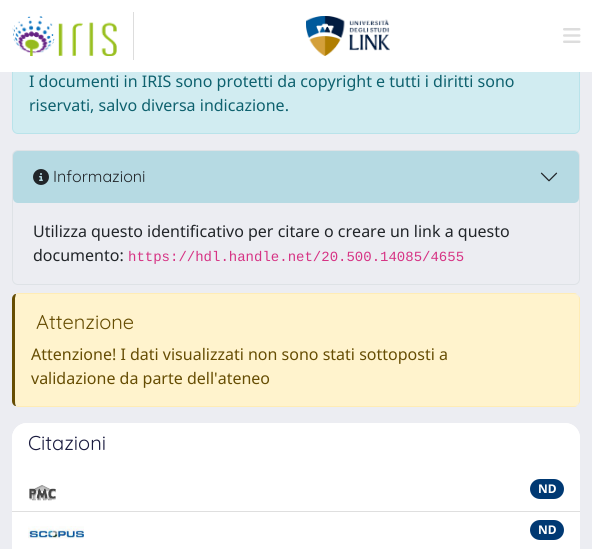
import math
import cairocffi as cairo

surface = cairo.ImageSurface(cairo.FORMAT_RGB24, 592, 549)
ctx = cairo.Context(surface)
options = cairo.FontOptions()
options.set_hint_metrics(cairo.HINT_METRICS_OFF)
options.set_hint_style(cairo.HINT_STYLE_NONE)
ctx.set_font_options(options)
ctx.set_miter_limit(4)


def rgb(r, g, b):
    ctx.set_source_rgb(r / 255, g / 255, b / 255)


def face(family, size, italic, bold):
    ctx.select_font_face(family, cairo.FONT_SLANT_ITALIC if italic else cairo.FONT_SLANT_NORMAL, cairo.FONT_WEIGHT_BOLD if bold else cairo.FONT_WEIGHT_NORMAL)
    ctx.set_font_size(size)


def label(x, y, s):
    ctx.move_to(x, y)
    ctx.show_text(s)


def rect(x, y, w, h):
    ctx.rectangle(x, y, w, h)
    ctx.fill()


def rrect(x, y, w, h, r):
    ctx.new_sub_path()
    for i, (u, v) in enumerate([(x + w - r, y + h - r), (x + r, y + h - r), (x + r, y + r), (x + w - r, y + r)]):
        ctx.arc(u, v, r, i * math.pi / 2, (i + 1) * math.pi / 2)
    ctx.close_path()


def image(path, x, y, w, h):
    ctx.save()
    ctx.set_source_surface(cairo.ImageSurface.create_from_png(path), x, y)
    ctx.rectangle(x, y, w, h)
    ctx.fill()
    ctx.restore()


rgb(236, 237, 242)
ctx.paint()
rgb(209, 236, 241)
rrect(12.5, 52.5, 567, 81, 5.5)
ctx.fill_preserve()
rgb(185, 227, 234)
ctx.set_line_width(1)
ctx.stroke()
rgb(255, 255, 255)
rect(0, 0, 592, 72)
rgb(221, 221, 221)
rect(133, 12, 1, 48)
image('image0.png', 12, 16, 105, 40)
image('image1.png', 306, 16, 84, 40)
image('image2.png', 563, 28, 18, 15)
face('Noto Sans', 16, 0, 0)
rgb(14, 97, 110)
label(29, 87, 'I documenti in IRIS sono protetti da copyright e tutti i diritti sono')
label(29, 111, 'riservati, salvo diversa indicazione.')
rrect(12.5, 150.5, 567, 134, 5.5)
rgb(222, 226, 230)
ctx.stroke()
ctx.set_source_rgba(0.09, 0.635, 0.722, 0.25)
rrect(13, 151, 566, 52, 5)
ctx.fill()
image('image3.png', 33, 169, 16, 16)
face('Quicksand Light', 16, 0, 0)
rgb(33, 37, 41)
label(53, 182, 'Informazioni')
image('image4.png', 540, 172, 18, 10)
face('Noto Sans', 16, 0, 0)
label(33, 237, 'Utilizza questo identificativo per citare o creare un link a questo')
label(33, 261, 'documento:')
face('Liberation Mono', 14, 0, 0)
rgb(214, 51, 132)
label(128, 261, 'https://hdl.handle.net/20.500.14085/4655')
rgb(255, 243, 205)
ctx.new_path()
ctx.move_to(18, 294)
ctx.line_to(574, 294)
ctx.curve_to(577, 294, 579, 296, 579, 299)
ctx.line_to(579, 401)
ctx.curve_to(579, 404, 577, 406, 574, 406)
ctx.line_to(18, 406)
ctx.curve_to(16, 406, 15, 404, 15, 401)
ctx.line_to(15, 299)
ctx.curve_to(15, 296, 16, 294, 18, 294)
ctx.close_path()
ctx.fill()
rgb(255, 236, 181)
ctx.new_path()
ctx.move_to(18, 293)
ctx.line_to(15, 294)
ctx.line_to(16, 294)
ctx.line_to(18, 294)
ctx.line_to(574, 294)
ctx.curve_to(576, 294, 577, 294, 578, 295)
ctx.curve_to(577, 294, 576, 293, 574, 293)
ctx.close_path()
ctx.fill()
ctx.new_path()
ctx.move_to(580, 401)
ctx.line_to(580, 298)
ctx.line_to(578, 295)
ctx.line_to(579, 298)
ctx.line_to(579, 402)
ctx.line_to(578, 405)
ctx.curve_to(579, 404, 580, 402, 580, 401)
ctx.close_path()
ctx.fill()
ctx.new_path()
ctx.move_to(18, 407)
ctx.line_to(574, 407)
ctx.curve_to(576, 407, 577, 406, 578, 405)
ctx.curve_to(577, 406, 576, 406, 574, 406)
ctx.line_to(18, 406)
ctx.line_to(16, 406)
ctx.line_to(15, 406)
ctx.close_path()
ctx.fill()
rgb(102, 77, 3)
ctx.new_path()
ctx.move_to(12, 299)
ctx.line_to(12, 401)
ctx.curve_to(12, 403, 13, 405, 15, 406)
ctx.line_to(16, 406)
ctx.curve_to(15, 404, 15, 403, 15, 401)
ctx.line_to(15, 298)
ctx.line_to(16, 294)
ctx.line_to(15, 294)
ctx.curve_to(13, 295, 12, 297, 12, 299)
ctx.close_path()
ctx.fill()
face('Quicksand Light', 20, 0, 0)
label(36, 329, 'Attenzione')
face('Noto Sans', 16, 0, 0)
label(31, 360, 'Attenzione! I dati visualizzati non sono stati sottoposti a')
label(31, 384, 'validazione da parte dell\'ateneo')
rgb(255, 255, 255)
rrect(12, 423, 568, 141, 15)
ctx.fill()
ctx.new_path()
ctx.move_to(27, 423)
ctx.line_to(565, 423)
ctx.curve_to(573.5, 423, 580, 429.5, 580, 438)
ctx.line_to(580, 471)
ctx.line_to(12, 471)
ctx.line_to(12, 438)
ctx.curve_to(12, 429.5, 18.5, 423, 27, 423)
ctx.close_path()
ctx.fill()
face('Quicksand Light', 20, 0, 0)
rgb(27, 28, 64)
label(28, 450, 'Citazioni')
rgb(223, 223, 223)
rect(12, 511, 568, 1)
image('image5.png', 29, 485, 27, 16)
rgb(0, 57, 115)
rrect(530, 479, 34, 20, 10)
ctx.fill()
face('Noto Sans', 12, 0, 1)
rgb(255, 255, 255)
label(538, 493, 'ND')
image('image6.png', 28, 526, 56, 13)
rgb(0, 57, 115)
rrect(530, 520, 34, 20, 10)
ctx.fill()
rgb(255, 255, 255)
label(538, 534, 'ND')
surface.write_to_png('render.png')
